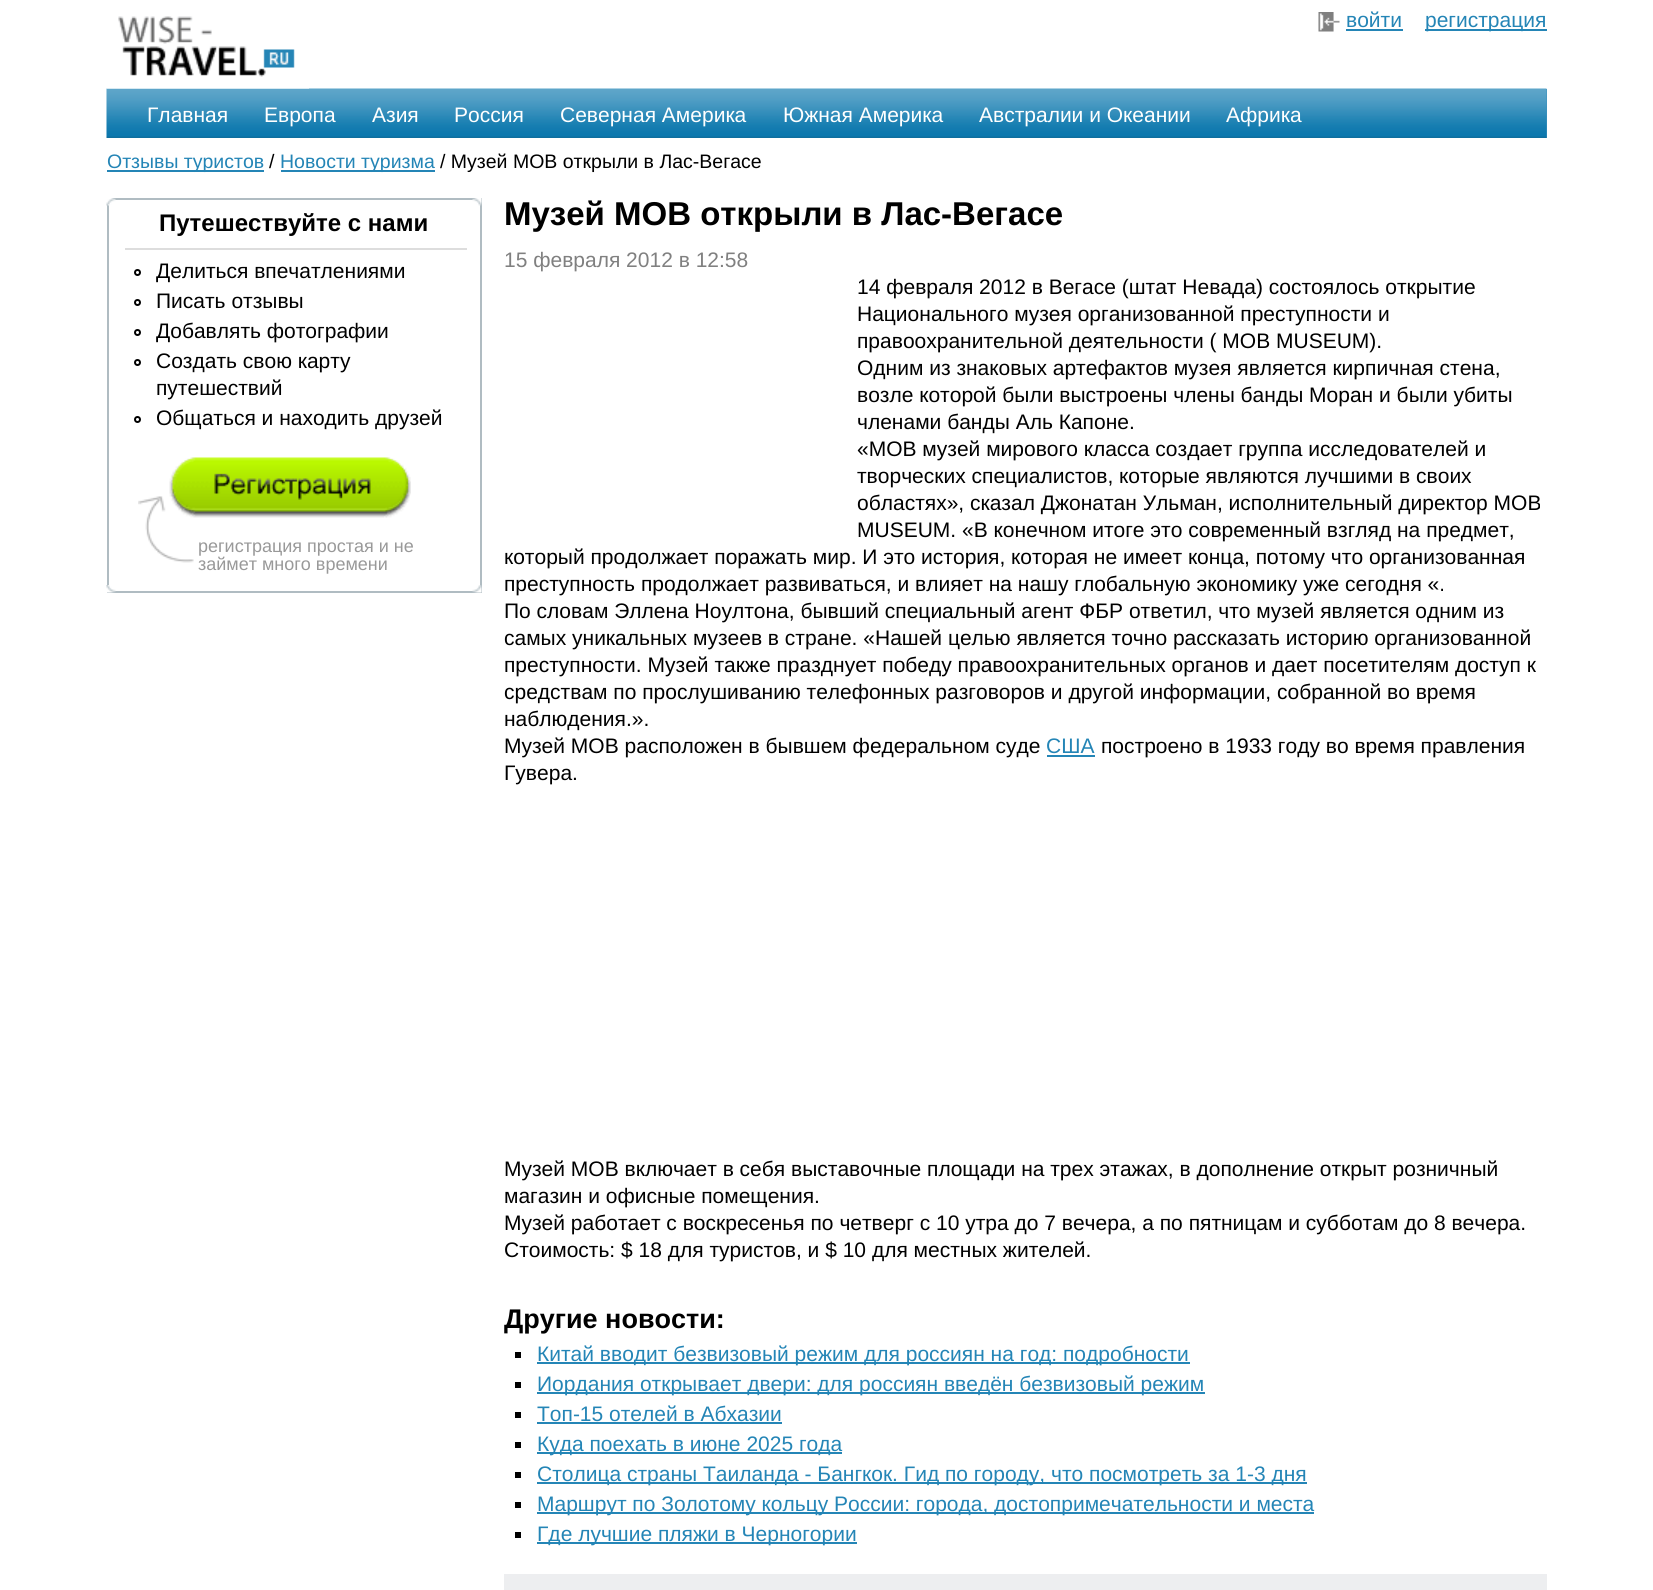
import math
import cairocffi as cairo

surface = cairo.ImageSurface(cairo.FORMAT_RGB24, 1653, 1590)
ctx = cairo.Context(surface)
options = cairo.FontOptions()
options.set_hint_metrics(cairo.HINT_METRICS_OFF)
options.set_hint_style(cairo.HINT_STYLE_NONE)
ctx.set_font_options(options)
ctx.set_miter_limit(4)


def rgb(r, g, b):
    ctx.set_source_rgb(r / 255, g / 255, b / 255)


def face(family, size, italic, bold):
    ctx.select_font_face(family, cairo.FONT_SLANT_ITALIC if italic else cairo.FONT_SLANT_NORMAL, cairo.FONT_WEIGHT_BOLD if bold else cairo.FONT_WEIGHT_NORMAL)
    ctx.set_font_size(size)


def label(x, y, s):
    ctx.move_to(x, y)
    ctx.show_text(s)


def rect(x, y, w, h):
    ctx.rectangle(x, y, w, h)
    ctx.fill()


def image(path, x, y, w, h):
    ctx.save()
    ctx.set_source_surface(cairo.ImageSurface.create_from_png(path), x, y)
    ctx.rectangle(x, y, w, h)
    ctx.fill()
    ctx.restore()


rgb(255, 255, 255)
ctx.paint()
rgb(58, 145, 189)
rect(1546, 89, 1, 49)
image('image2.png', 106, 88, 1441, 50)
image('image0.png', 106, 16, 203, 73)
image('image1.png', 1318, 12, 22, 20)
face('Liberation Sans', 21, 0, 0)
rgb(36, 133, 182)
label(1346, 27, 'войти')
rect(1346, 29, 57, 2)
rect(1425, 29, 122, 2)
label(1425, 27, 'регистрация')
rgb(255, 255, 255)
label(147, 122, 'Главная')
label(264, 122, 'Европа')
label(372, 122, 'Азия')
label(454, 122, 'Россия')
label(560, 122, 'Северная Америка')
label(783, 122, 'Южная Америка')
label(979, 122, 'Австралии и Океании')
label(1226, 122, 'Африка')
rgb(36, 133, 182)
rect(107, 170, 157, 2)
face('Liberation Sans', 19.5, 0, 0)
label(107, 168, 'Отзывы туристов')
rgb(0, 0, 0)
label(269, 168, '/')
rgb(36, 133, 182)
rect(281, 170, 154, 2)
label(280, 168, 'Новости туризма')
rgb(0, 0, 0)
label(440, 168, '/ Музей MOB открыли в Лас-Вегасе')
ctx.rectangle(108, 199, 373, 393)
rgb(176, 188, 194)
ctx.stroke()
image('image3.png', 106, 198, 10, 8)
image('image4.png', 472, 198, 10, 8)
face('Liberation Sans', 24, 0, 1)
rgb(0, 0, 0)
label(159, 231, 'Путешествуйте с нами')
rgb(221, 221, 221)
rect(125, 248, 342, 2)
ctx.new_path()
ctx.arc(137.5, 272.5, 2.5, 0, 2 * math.pi)
rgb(0, 0, 0)
ctx.stroke()
face('Liberation Sans', 21, 0, 0)
label(156, 278, 'Делиться впечатлениями')
ctx.new_path()
ctx.arc(137.5, 302.5, 2.5, 0, 2 * math.pi)
ctx.stroke()
label(156, 308, 'Писать отзывы')
ctx.new_path()
ctx.arc(137.5, 332.5, 2.5, 0, 2 * math.pi)
ctx.stroke()
label(156, 338, 'Добавлять фотографии')
ctx.new_path()
ctx.arc(137.5, 362.5, 2.5, 0, 2 * math.pi)
ctx.stroke()
label(156, 368, 'Создать свою карту')
label(156, 395, 'путешествий')
ctx.new_path()
ctx.arc(137.5, 419.5, 2.5, 0, 2 * math.pi)
ctx.stroke()
label(156, 425, 'Общаться и находить друзей')
image('image5.png', 138, 496, 56, 67)
image('image6.png', 169, 457, 242, 61)
face('Liberation Sans', 18, 0, 0)
rgb(153, 153, 153)
label(198, 552, 'регистрация простая и не')
label(198, 570, 'займет много времени')
image('image7.png', 106, 585, 10, 8)
image('image8.png', 472, 585, 10, 8)
face('Liberation Sans', 33, 0, 1)
rgb(0, 0, 0)
label(504, 225, 'Музей MOB открыли в Лас-Вегасе')
face('Liberation Sans', 21, 0, 0)
rgb(128, 128, 128)
label(504, 267, '15 февраля 2012 в 12:58')
rgb(0, 0, 0)
label(857, 294, '14 февраля 2012 в Вегасе (штат Невада) состоялось открытие')
label(857, 321, 'Национального музея организованной преступности и')
label(857, 348, 'правоохранительной деятельности ( MOB MUSEUM).')
label(857, 375, 'Одним из знаковых артефактов музея является кирпичная стена,')
label(857, 402, 'возле которой были выстроены члены банды Моран и были убиты')
label(857, 429, 'членами банды Аль Капоне.')
label(857, 456, '«MOB музей мирового класса создает группа исследователей и')
label(857, 483, 'творческих специалистов, которые являются лучшими в своих')
label(857, 510, 'областях», сказал Джонатан Ульман, исполнительный директор MOB')
label(857, 537, 'MUSEUM. «В конечном итоге это современный взгляд на предмет,')
label(504, 564, 'который продолжает поражать мир. И это история, которая не имеет конца, потому что организованная')
label(504, 591, 'преступность продолжает развиваться, и влияет на нашу глобальную экономику уже сегодня «.')
label(504, 618, 'По словам Эллена Ноултона, бывший специальный агент ФБР ответил, что музей является одним из')
label(504, 645, 'самых уникальных музеев в стране. «Нашей целью является точно рассказать историю организованной')
label(504, 672, 'преступности. Музей также празднует победу правоохранительных органов и дает посетителям доступ к')
label(504, 699, 'средствам по прослушиванию телефонных разговоров и другой информации, собранной во время')
label(504, 726, 'наблюдения.».')
label(504, 753, 'Музей MOB расположен в бывшем федеральном суде')
rgb(36, 133, 182)
label(1046, 753, 'США')
rect(1047, 755, 48, 2)
rgb(0, 0, 0)
label(1101, 753, 'построено в 1933 году во время правления')
label(504, 780, 'Гувера.')
label(504, 1176, 'Музей MOB включает в себя выставочные площади на трех этажах, в дополнение открыт розничный')
label(504, 1203, 'магазин и офисные помещения.')
label(504, 1230, 'Музей работает с воскресенья по четверг с 10 утра до 7 вечера, а по пятницам и субботам до 8 вечера.')
label(504, 1257, 'Стоимость: $ 18 для туристов, и $ 10 для местных жителей.')
face('Liberation Sans', 27, 0, 1)
label(504, 1328, 'Другие новости:')
rect(515, 1352, 6, 6)
rgb(36, 133, 182)
rect(537, 1362, 653, 2)
face('Liberation Sans', 21, 0, 0)
label(537, 1361, 'Китай вводит безвизовый режим для россиян на год: подробности')
rgb(0, 0, 0)
rect(515, 1382, 6, 6)
rgb(36, 133, 182)
rect(537, 1392, 668, 2)
label(537, 1391, 'Иордания открывает двери: для россиян введён безвизовый режим')
rgb(0, 0, 0)
rect(515, 1412, 6, 6)
rgb(36, 133, 182)
label(537, 1421, 'Топ-15 отелей в Абхазии')
rect(537, 1422, 245, 2)
rgb(0, 0, 0)
rect(515, 1442, 6, 6)
rgb(36, 133, 182)
rect(537, 1452, 305, 2)
label(537, 1451, 'Куда поехать в июне 2025 года')
rgb(0, 0, 0)
rect(515, 1472, 6, 6)
rgb(36, 133, 182)
rect(537, 1482, 770, 2)
label(537, 1481, 'Столица страны Таиланда - Бангкок. Гид по городу, что посмотреть за 1-3 дня')
rgb(0, 0, 0)
rect(515, 1502, 6, 6)
rgb(36, 133, 182)
rect(537, 1512, 777, 2)
label(537, 1511, 'Маршрут по Золотому кольцу России: города, достопримечательности и места')
rgb(0, 0, 0)
rect(515, 1532, 6, 6)
rgb(36, 133, 182)
rect(537, 1542, 320, 2)
label(537, 1541, 'Где лучшие пляжи в Черногории')
rgb(237, 238, 240)
rect(504, 1574, 1043, 16)
surface.write_to_png('render.png')
